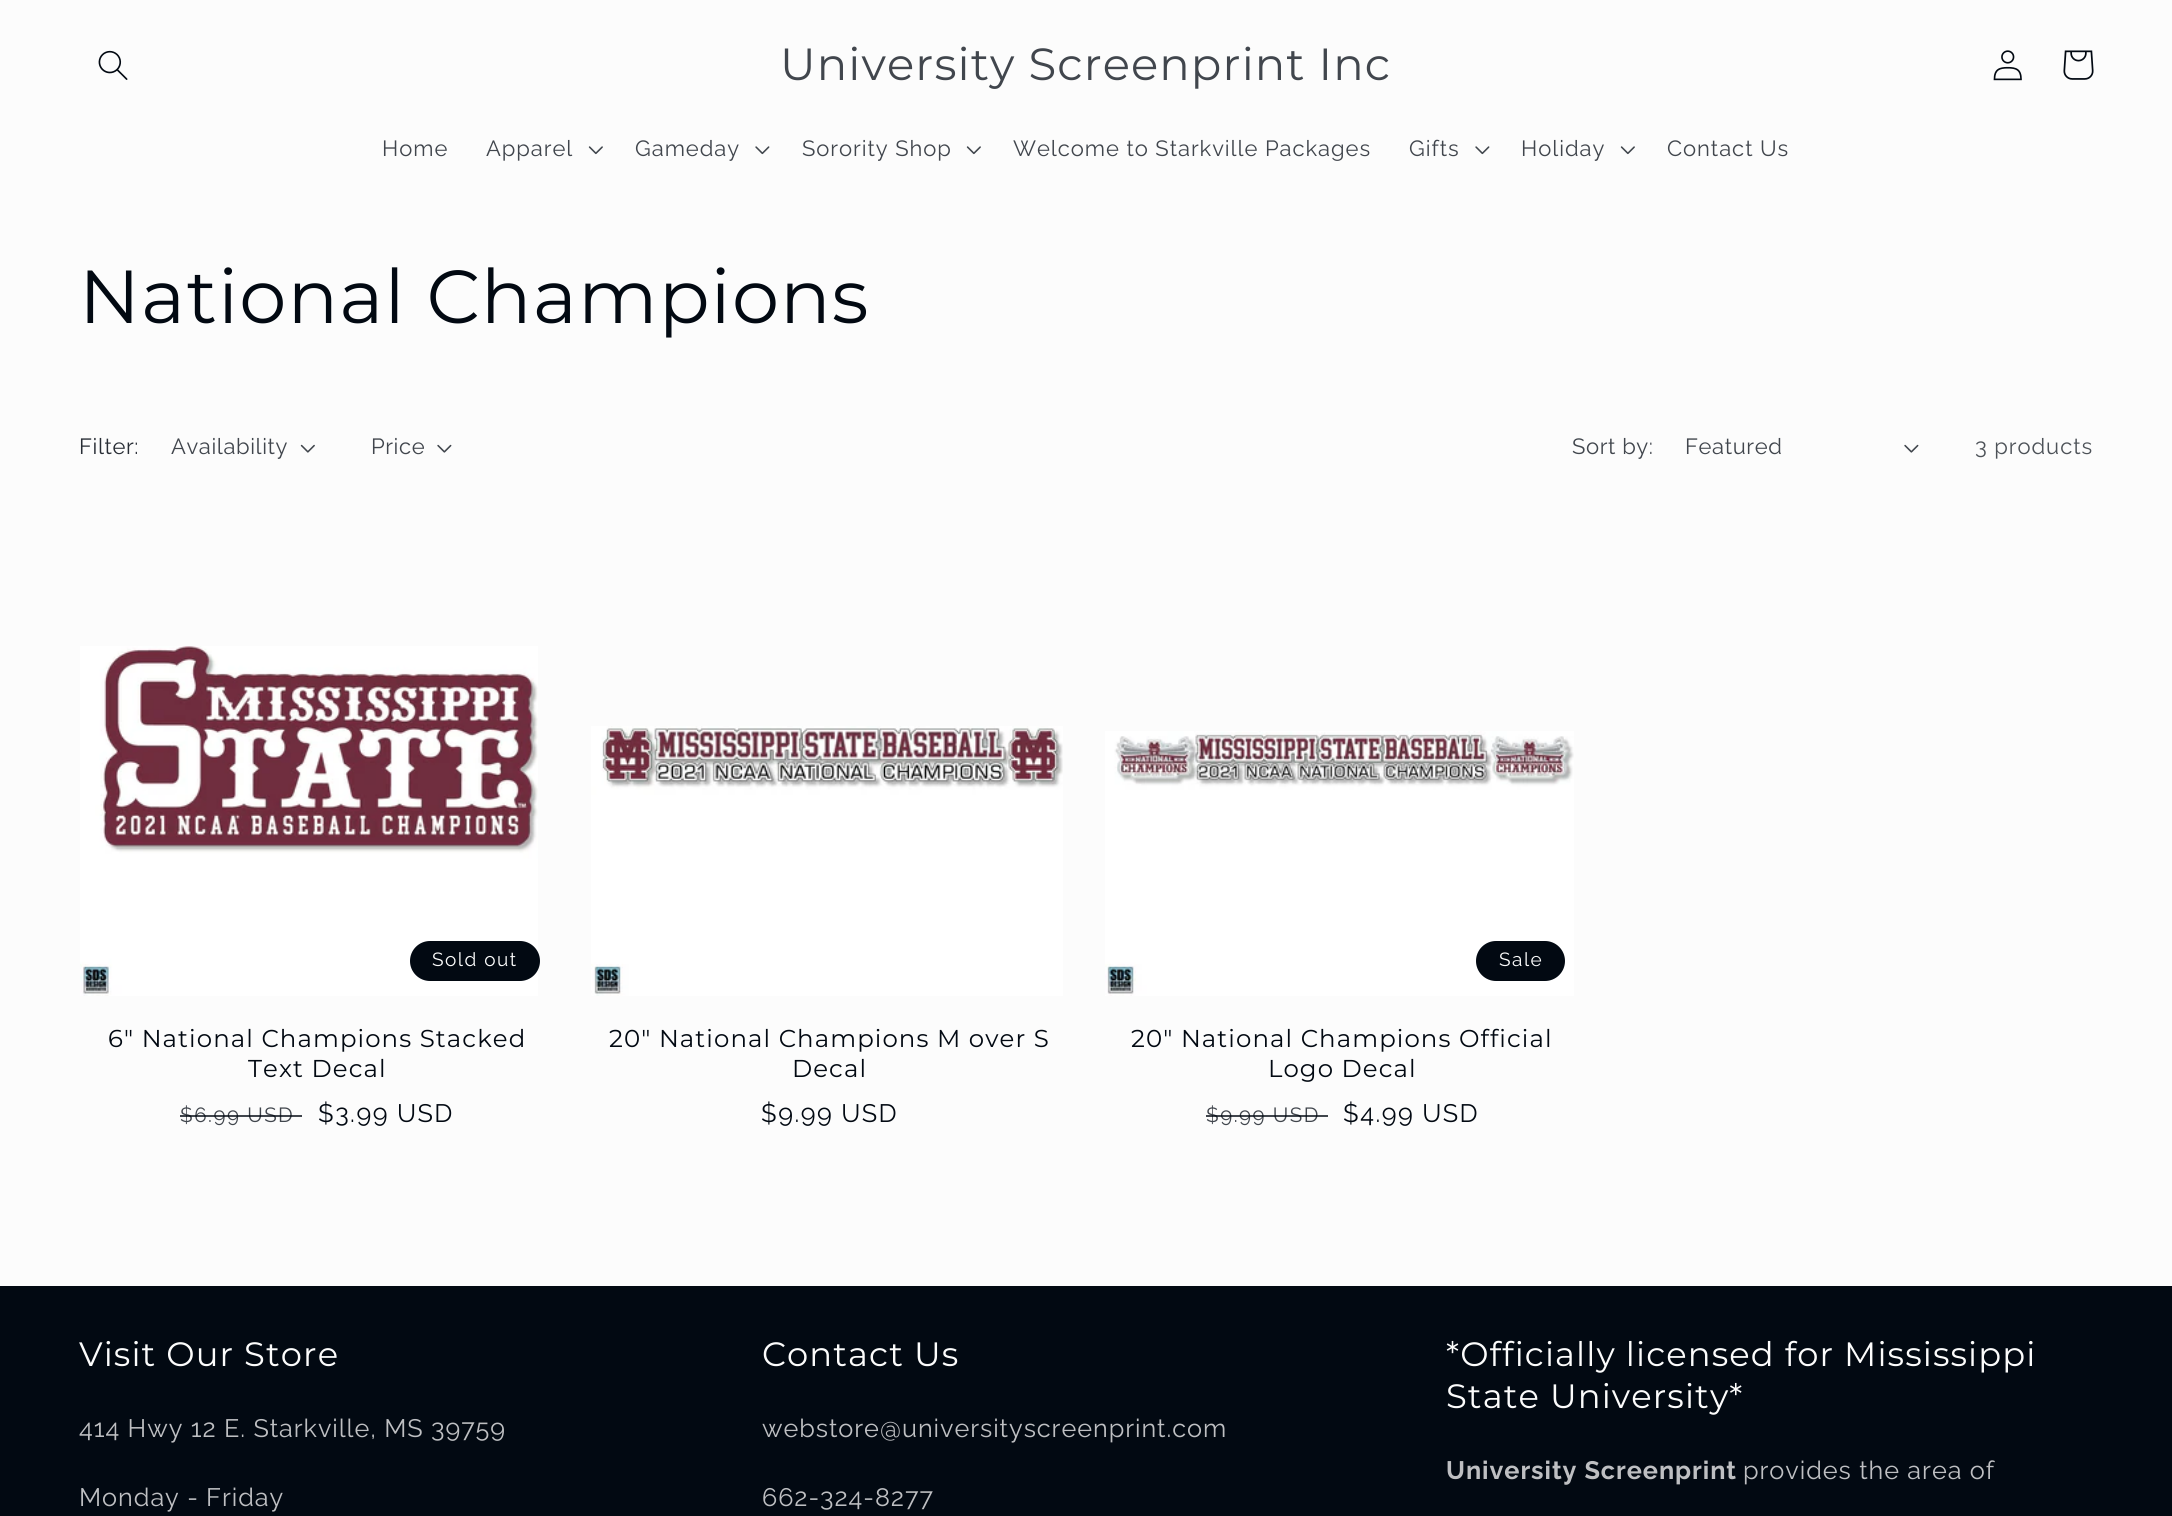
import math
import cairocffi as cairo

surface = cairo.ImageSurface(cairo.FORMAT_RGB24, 2172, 1516)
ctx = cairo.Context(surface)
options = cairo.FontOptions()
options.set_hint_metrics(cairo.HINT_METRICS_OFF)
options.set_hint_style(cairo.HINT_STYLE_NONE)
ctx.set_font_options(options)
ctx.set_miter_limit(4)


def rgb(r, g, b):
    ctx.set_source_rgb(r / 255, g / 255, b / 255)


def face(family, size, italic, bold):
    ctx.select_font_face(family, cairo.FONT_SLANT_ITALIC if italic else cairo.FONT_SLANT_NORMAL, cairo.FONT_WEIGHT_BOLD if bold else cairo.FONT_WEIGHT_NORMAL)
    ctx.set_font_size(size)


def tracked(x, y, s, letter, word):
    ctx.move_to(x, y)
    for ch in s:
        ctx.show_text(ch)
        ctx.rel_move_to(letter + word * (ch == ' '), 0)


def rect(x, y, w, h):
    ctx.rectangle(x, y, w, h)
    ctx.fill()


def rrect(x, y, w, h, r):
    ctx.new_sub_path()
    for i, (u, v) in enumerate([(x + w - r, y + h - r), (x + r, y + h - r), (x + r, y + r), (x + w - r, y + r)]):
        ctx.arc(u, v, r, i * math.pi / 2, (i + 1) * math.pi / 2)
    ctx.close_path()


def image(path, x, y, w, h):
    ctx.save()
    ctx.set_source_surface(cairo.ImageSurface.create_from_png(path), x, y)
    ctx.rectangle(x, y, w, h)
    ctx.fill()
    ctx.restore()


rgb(252, 252, 252)
ctx.paint()
image('image0.png', 98, 50, 30, 30)
face('Montserrat', 45, 0, 0)
rgb(65, 70, 77)
tracked(780, 80, 'University Screenprint Inc', 1.1, 0)
image('image1.png', 1993, 50, 29, 31)
image('image2.png', 2063, 50, 31, 30)
face('Raleway', 22, 0, 0)
tracked(382, 156, 'Home', 0.95, 0)
tracked(486, 156, 'Apparel', 0.95, 0)
image('image3.png', 588, 146, 15, 9)
tracked(635, 156, 'Gameday', 0.95, 0)
image('image4.png', 755, 146, 15, 9)
tracked(802, 156, 'Sorority Shop', 0.95, 0)
image('image3.png', 966, 146, 15, 9)
tracked(1013, 156, 'Welcome to Starkville Packages', 0.95, 0)
tracked(1409, 156, 'Gifts', 0.95, 0)
image('image4.png', 1475, 146, 15, 9)
tracked(1521, 156, 'Holiday', 0.95, 0)
image('image3.png', 1620, 146, 15, 9)
tracked(1667, 156, 'Contact Us', 0.95, 0)
face('Montserrat', 75, 0, 0)
rgb(2, 9, 18)
tracked(79, 323, 'National Champions', 1.1, 0)
face('Raleway', 22, 0, 0)
rgb(40, 45, 53)
tracked(79, 454, 'Filter:', 0.6, 0)
rgb(65, 70, 77)
tracked(171, 454, 'Availability', 0.6, 0)
image('image5.png', 300, 444, 15, 9)
tracked(371, 454, 'Price', 0.6, 0)
image('image6.png', 437, 444, 15, 9)
tracked(1572, 454, 'Sort by:', 0.6, 0)
tracked(1685, 454, 'Featured', 0.6, 0)
image('image6.png', 1904, 444, 15, 9)
rgb(77, 82, 88)
tracked(1975, 454, '3 products', 0.95, 0)
image('image7.png', 80, 646, 458, 350)
rgb(2, 9, 18)
rrect(411, 942, 128, 38, 19)
ctx.fill_preserve()
ctx.stroke()
face('Raleway', 19, 0, 0)
rgb(252, 252, 252)
tracked(432, 966, 'Sold out', 1.5, 0)
face('Montserrat', 24.4, 0, 0)
rgb(2, 9, 18)
tracked(108, 1047, '6" National Champions Stacked', 1.1, 0)
tracked(248, 1077, 'Text Decal', 1.1, 0)
face('Raleway', 20.5, 0, 0)
rgb(65, 70, 77)
tracked(180, 1122, '$6.99 USD', 1.5, 0)
ctx.set_source_rgba(0.008, 0.035, 0.071, 0.75)
rect(180, 1115, 122, 2)
face('Raleway', 25.25, 0, 0)
rgb(2, 9, 18)
tracked(318, 1122, '$3.99 USD', 1.5, 0)
image('image8.png', 591, 726, 472, 270)
face('Montserrat', 24.4, 0, 0)
tracked(609, 1047, '20" National Champions M over S', 1.1, 0)
tracked(792, 1077, 'Decal', 1.1, 0)
face('Raleway', 25.25, 0, 0)
tracked(761, 1122, '$9.99 USD', 1.5, 0)
image('image9.png', 1105, 731, 469, 265)
rrect(1477, 942, 87, 38, 19)
ctx.fill_preserve()
ctx.stroke()
face('Raleway', 19, 0, 0)
rgb(252, 252, 252)
tracked(1499, 966, 'Sale', 1.5, 0)
face('Montserrat', 24.4, 0, 0)
rgb(2, 9, 18)
tracked(1131, 1047, '20" National Champions Official', 1.1, 0)
tracked(1268, 1077, 'Logo Decal', 1.1, 0)
face('Raleway', 20.5, 0, 0)
rgb(65, 70, 77)
tracked(1206, 1122, '$9.99 USD', 1.5, 0)
ctx.set_source_rgba(0.008, 0.035, 0.071, 0.75)
rect(1206, 1115, 122, 2)
face('Raleway', 25.25, 0, 0)
rgb(2, 9, 18)
tracked(1343, 1122, '$4.99 USD', 1.5, 0)
rect(0, 1286, 2172, 230)
face('Montserrat', 33.75, 0, 0)
rgb(252, 252, 252)
tracked(79, 1366, 'Visit Our Store', 1.1, 0)
face('Raleway', 25.25, 0, 0)
rgb(190, 191, 194)
tracked(79, 1437, '414 Hwy 12 E. Starkville, MS 39759', 0.95, 0)
tracked(79, 1506, 'Monday - Friday', 0.95, 0)
face('Montserrat', 33.75, 0, 0)
rgb(252, 252, 252)
tracked(762, 1366, 'Contact Us', 1.1, 0)
face('Raleway', 25.25, 0, 0)
rgb(190, 191, 194)
tracked(762, 1437, 'webstore@universityscreenprint.com', 0.95, 0)
tracked(762, 1506, '662-324-8277', 0.95, 0)
face('Montserrat', 33.75, 0, 0)
rgb(252, 252, 252)
tracked(1446, 1366, '*Officially licensed for Mississippi', 1.1, 0)
tracked(1446, 1408, 'State University*', 1.1, 0)
face('Raleway', 25.25, 0, 1)
rgb(190, 191, 194)
tracked(1446, 1479, 'University Screenprint', 0.95, 0)
face('Raleway', 25.25, 0, 0)
tracked(1743, 1479, 'provides the area of', 0.95, 0)
surface.write_to_png('render.png')
